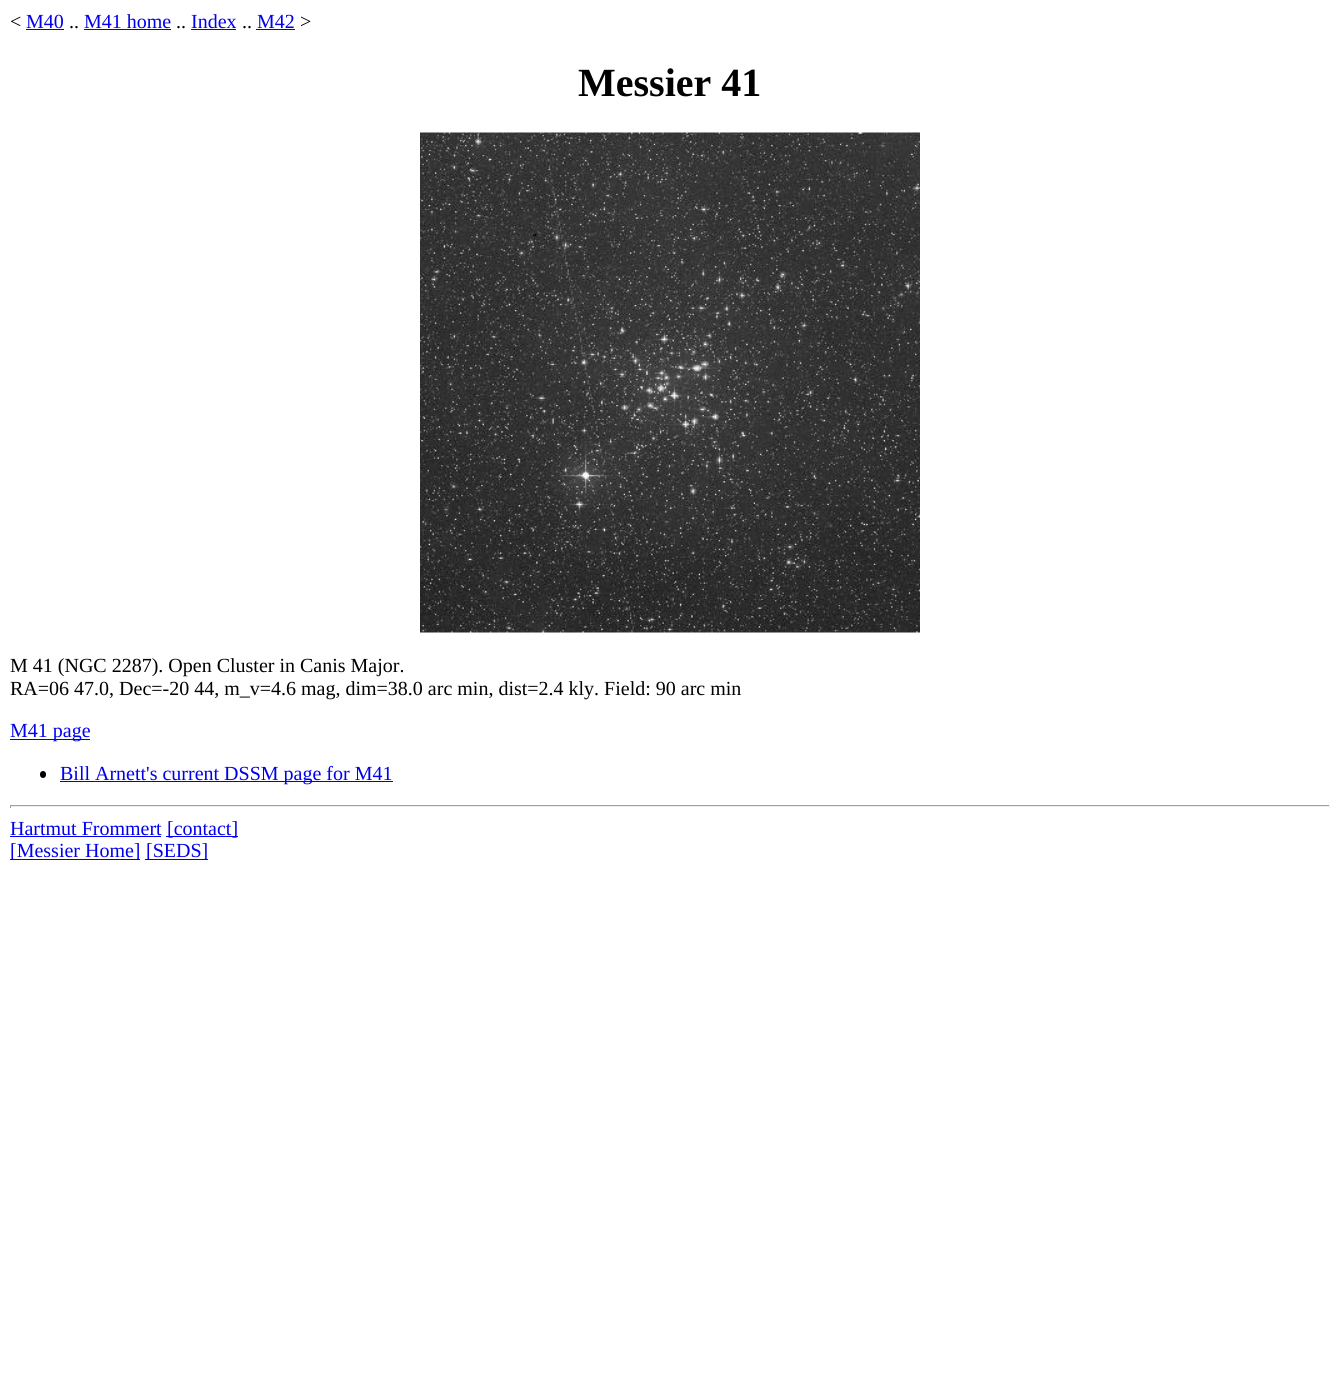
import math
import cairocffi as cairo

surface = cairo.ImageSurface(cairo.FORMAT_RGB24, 1339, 1381)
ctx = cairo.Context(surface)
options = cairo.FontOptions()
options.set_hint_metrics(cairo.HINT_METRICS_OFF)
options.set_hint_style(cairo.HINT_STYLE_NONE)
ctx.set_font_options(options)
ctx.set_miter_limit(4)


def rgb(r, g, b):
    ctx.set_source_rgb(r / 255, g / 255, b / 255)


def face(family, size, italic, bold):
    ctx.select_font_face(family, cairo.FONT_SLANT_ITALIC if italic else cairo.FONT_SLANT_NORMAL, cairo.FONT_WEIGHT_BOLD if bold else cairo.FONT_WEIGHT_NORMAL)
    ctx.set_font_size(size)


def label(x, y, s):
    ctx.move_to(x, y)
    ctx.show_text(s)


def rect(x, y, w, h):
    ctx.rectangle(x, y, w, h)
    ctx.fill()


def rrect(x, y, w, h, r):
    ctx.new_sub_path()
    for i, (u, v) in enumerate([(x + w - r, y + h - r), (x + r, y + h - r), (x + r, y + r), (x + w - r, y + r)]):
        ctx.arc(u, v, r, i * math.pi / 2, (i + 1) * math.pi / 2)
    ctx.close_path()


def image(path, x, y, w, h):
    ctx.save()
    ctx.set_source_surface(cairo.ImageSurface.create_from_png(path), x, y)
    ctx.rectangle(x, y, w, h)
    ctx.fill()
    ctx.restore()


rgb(255, 255, 255)
ctx.paint()
face('Liberation Serif', 20, 0, 0)
rgb(0, 0, 0)
label(10, 28, '<')
rgb(0, 0, 238)
label(26, 28, 'M40')
rect(26, 29, 38, 1)
rgb(0, 0, 0)
label(69, 28, '..')
rgb(0, 0, 238)
label(84, 28, 'M41 home')
rect(84, 29, 87, 1)
rgb(0, 0, 0)
label(176, 28, '..')
rgb(0, 0, 238)
label(191, 28, 'Index')
rect(191, 29, 45, 1)
rgb(0, 0, 0)
label(242, 28, '..')
rgb(0, 0, 238)
label(257, 28, 'M42')
rect(256, 29, 39, 1)
rgb(0, 0, 0)
label(300, 28, '>')
face('Liberation Serif', 40, 0, 1)
label(578, 96, 'Messier 41')
image('image0.png', 420, 132, 500, 501)
face('Liberation Serif', 20, 0, 0)
label(10, 672, 'M 41 (NGC 2287). Open Cluster in Canis Major.')
label(10, 695, 'RA=06 47.0, Dec=-20 44, m_v=4.6 mag, dim=38.0 arc min, dist=2.4 kly. Field: 90 arc min')
rgb(0, 0, 238)
rect(10, 739, 80, 1)
label(10, 737, 'M41 page')
rgb(0, 0, 0)
rrect(40, 771, 6, 7, 3)
ctx.fill()
rgb(0, 0, 238)
rect(60, 781, 333, 1)
label(60, 780, 'Bill Arnett\'s current DSSM page for M41')
rgb(159, 159, 159)
rect(10, 805, 1320, 1)
rgb(238, 238, 238)
rect(1329, 805, 1, 3)
rect(10, 806, 1320, 1)
rgb(159, 159, 159)
rect(10, 805, 1, 3)
rgb(0, 0, 238)
label(10, 835, 'Hartmut Frommert')
rect(10, 836, 151, 1)
rect(166, 836, 72, 1)
label(167, 835, '[contact]')
rect(10, 859, 130, 1)
label(10, 857, '[Messier Home]')
rect(145, 859, 63, 1)
label(146, 857, '[SEDS]')
surface.write_to_png('render.png')
